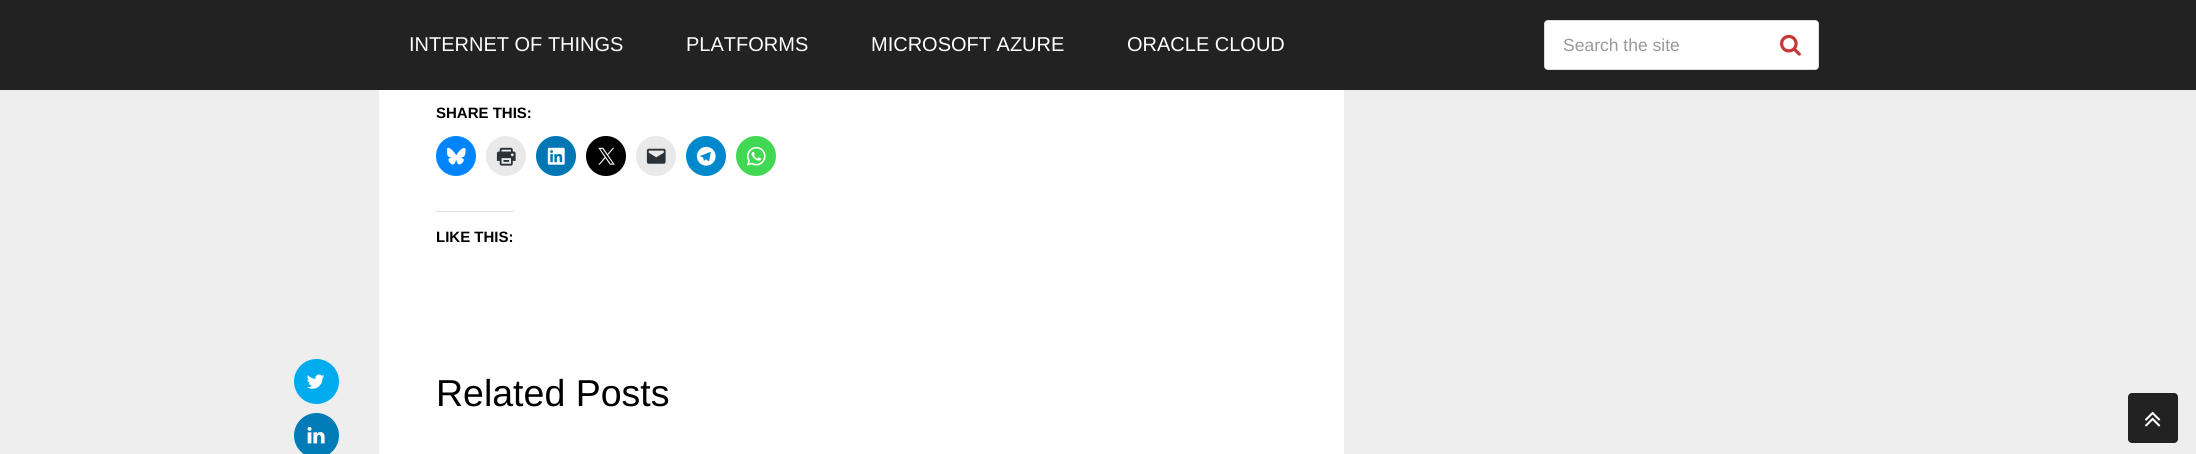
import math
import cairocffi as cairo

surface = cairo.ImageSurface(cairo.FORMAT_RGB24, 2196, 454)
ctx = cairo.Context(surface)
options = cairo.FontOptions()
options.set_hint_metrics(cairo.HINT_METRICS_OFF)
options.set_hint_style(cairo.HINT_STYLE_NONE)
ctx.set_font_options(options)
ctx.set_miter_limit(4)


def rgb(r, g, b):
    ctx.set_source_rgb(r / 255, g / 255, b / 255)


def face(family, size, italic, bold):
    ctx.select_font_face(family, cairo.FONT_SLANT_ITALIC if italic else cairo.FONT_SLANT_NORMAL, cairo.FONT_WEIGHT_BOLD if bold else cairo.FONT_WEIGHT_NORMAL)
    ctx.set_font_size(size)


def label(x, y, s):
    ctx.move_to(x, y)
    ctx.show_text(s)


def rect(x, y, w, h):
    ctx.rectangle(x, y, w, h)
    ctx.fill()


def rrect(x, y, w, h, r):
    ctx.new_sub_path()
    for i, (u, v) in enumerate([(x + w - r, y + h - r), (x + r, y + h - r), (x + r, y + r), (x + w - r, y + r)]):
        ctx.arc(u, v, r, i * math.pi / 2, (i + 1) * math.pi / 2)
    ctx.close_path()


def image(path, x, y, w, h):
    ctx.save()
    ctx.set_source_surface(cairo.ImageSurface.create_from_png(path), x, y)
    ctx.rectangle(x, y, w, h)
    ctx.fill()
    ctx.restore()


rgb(238, 238, 238)
ctx.paint()
rgb(34, 34, 34)
rect(0, 0, 2196, 90)
face('Liberation Sans', 20, 0, 0)
rgb(255, 255, 255)
label(409, 51, 'INTERNET OF THINGS')
label(686, 51, 'PLATFORMS')
label(871, 51, 'MICROSOFT AZURE')
label(1127, 51, 'ORACLE CLOUD')
rrect(1544.5, 20.5, 274, 49, 3.5)
ctx.fill_preserve()
rgb(221, 221, 221)
ctx.set_line_width(1)
ctx.stroke()
face('Liberation Sans', 17.5, 0, 0)
rgb(153, 153, 153)
label(1563, 51, 'Search the site')
image('image0.png', 1780, 34, 21, 22)
rgb(255, 255, 255)
rect(379, 90, 965, 364)
face('Liberation Sans', 15, 0, 1)
rgb(0, 0, 0)
label(436, 118, 'SHARE THIS:')
rgb(0, 133, 255)
ctx.new_path()
ctx.arc(456, 156, 20, 0, 2 * math.pi)
ctx.fill()
image('image1.png', 446, 147, 20, 18)
rgb(233, 233, 233)
ctx.arc(506, 156, 20, 0, 2 * math.pi)
ctx.fill()
image('image2.png', 496, 147, 20, 19)
rgb(0, 119, 181)
ctx.arc(556, 156, 20, 0, 2 * math.pi)
ctx.fill()
image('image3.png', 547, 147, 18, 18)
rgb(0, 0, 0)
ctx.arc(606, 156, 20, 0, 2 * math.pi)
ctx.fill()
image('image4.png', 598, 147, 17, 18)
rgb(233, 233, 233)
ctx.arc(656, 156, 20, 0, 2 * math.pi)
ctx.fill()
image('image5.png', 646, 148, 20, 16)
rgb(0, 136, 204)
ctx.arc(706, 156, 20, 0, 2 * math.pi)
ctx.fill()
image('image6.png', 696, 146, 20, 20)
rgb(67, 216, 84)
ctx.arc(756, 156, 20, 0, 2 * math.pi)
ctx.fill()
image('image7.png', 747, 146, 19, 20)
rgb(220, 220, 222)
rect(436, 211, 78, 1)
rgb(0, 0, 0)
label(436, 242, 'LIKE THIS:')
rgb(0, 172, 237)
ctx.new_path()
ctx.arc(316.5, 381.5, 22.5, 0, 2 * math.pi)
ctx.fill()
image('image8.png', 307, 374, 18, 15)
rgb(0, 123, 182)
ctx.arc(316.5, 435.5, 22.5, 0, 2 * math.pi)
ctx.fill()
image('image9.png', 307, 427, 18, 17)
face('Liberation Sans', 37.5, 0, 0)
rgb(0, 0, 0)
label(436, 406, 'Related Posts')
rgb(34, 34, 34)
rrect(2128, 393, 50, 50, 4)
ctx.fill()
image('image10.png', 2145, 411, 16, 16)
surface.write_to_png('render.png')
